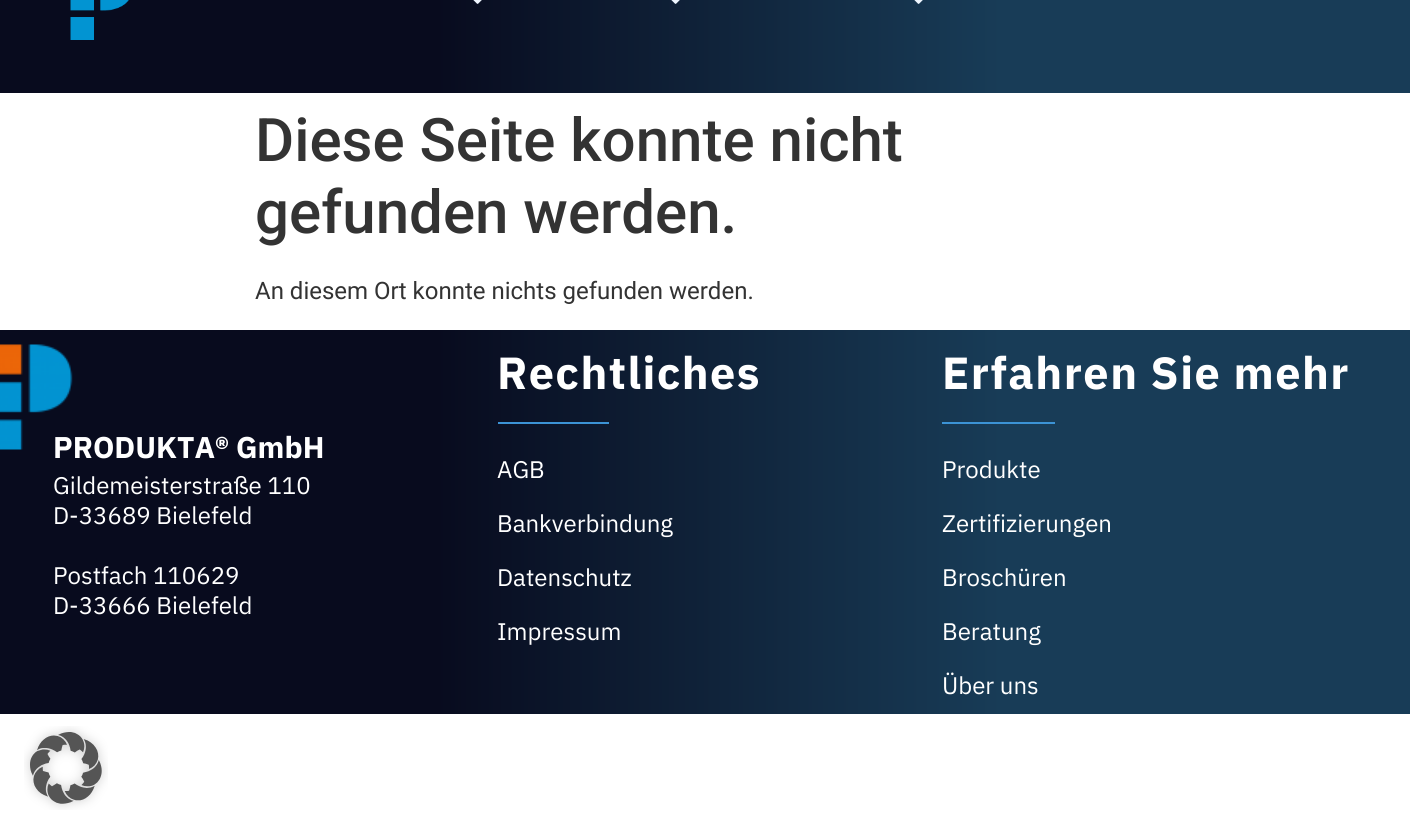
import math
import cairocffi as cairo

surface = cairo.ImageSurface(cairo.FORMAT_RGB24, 1410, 834)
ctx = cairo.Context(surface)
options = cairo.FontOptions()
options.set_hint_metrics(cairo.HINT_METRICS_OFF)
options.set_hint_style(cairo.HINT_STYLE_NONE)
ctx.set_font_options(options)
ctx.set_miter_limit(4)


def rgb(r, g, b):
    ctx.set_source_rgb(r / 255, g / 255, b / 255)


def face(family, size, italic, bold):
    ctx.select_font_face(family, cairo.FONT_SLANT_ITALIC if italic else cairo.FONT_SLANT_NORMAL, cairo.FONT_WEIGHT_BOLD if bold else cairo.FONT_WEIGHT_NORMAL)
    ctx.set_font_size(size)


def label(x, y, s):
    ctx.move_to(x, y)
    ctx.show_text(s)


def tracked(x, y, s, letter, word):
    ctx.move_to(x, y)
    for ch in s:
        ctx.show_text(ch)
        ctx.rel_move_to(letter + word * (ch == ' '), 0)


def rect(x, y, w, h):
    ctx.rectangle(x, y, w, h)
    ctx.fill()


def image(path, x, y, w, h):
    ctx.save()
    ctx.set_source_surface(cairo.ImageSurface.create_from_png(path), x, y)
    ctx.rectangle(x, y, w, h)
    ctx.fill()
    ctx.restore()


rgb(255, 255, 255)
ctx.paint()
gradient = cairo.LinearGradient(0, -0.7, 1410, -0.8)
gradient.add_color_stop_rgba(0.31, 0.031, 0.043, 0.118, 1)
gradient.add_color_stop_rgba(0.71, 0.094, 0.235, 0.341, 1)
ctx.set_source(gradient)
rect(0, 0, 1410, 93)
image('image0.png', 70, 0, 59, 40)
image('image1.png', 473, 0, 9, 4)
image('image2.png', 671, 0, 9, 4)
image('image3.png', 914, 0, 9, 4)
face('Roboto Medium', 60, 0, 0)
rgb(51, 51, 51)
label(255, 161, 'Diese Seite konnte nicht')
label(255, 233, 'gefunden werden.')
face('Roboto', 24, 0, 0)
label(255, 299, 'An diesem Ort konnte nichts gefunden werden.')
gradient = cairo.LinearGradient(0, 522, 1410, 522)
gradient.add_color_stop_rgba(0.31, 0.031, 0.043, 0.118, 1)
gradient.add_color_stop_rgba(0.71, 0.094, 0.235, 0.341, 1)
ctx.set_source(gradient)
rect(0, 330, 1410, 384)
image('image4.png', 0, 344, 73, 106)
face('IBM Plex Sans', 30, 0, 1)
rgb(255, 255, 255)
label(53, 458, 'PRODUKTA® GmbH')
face('IBM Plex Sans', 24, 0, 0)
label(53, 494, 'Gildemeisterstraße 110')
label(53, 524, 'D-33689 Bielefeld')
label(53, 584, 'Postfach 110629')
label(53, 614, 'D-33666 Bielefeld')
face('IBM Plex Sans', 45, 0, 1)
tracked(497, 389, 'Rechtliches', 1.5, 0)
rgb(60, 147, 213)
rect(498, 422, 111, 2)
face('IBM Plex Sans', 24, 0, 0)
rgb(255, 255, 255)
label(497, 478, 'AGB')
label(497, 532, 'Bankverbindung')
label(497, 586, 'Datenschutz')
label(497, 640, 'Impressum')
face('IBM Plex Sans', 45, 0, 1)
tracked(942, 389, 'Erfahren Sie mehr', 1.5, 0)
rgb(60, 147, 213)
rect(942, 422, 113, 2)
face('IBM Plex Sans', 24, 0, 0)
rgb(255, 255, 255)
label(942, 478, 'Produkte')
label(942, 532, 'Zertifizierungen')
label(942, 586, 'Broschüren')
label(942, 640, 'Beratung')
label(942, 694, 'Über uns')
image('image5.png', 24, 726, 84, 84)
surface.write_to_png('render.png')
